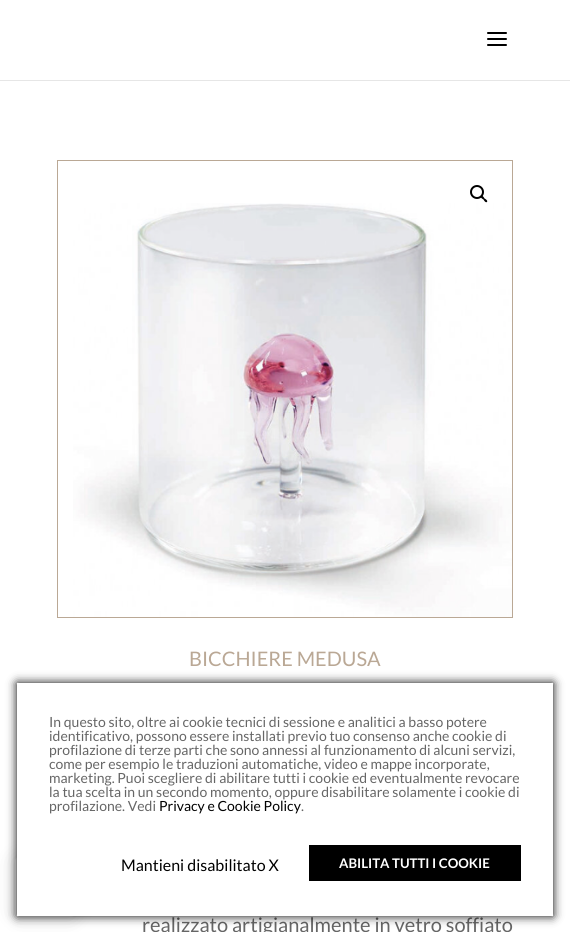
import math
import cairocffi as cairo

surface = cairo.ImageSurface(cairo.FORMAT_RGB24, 570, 932)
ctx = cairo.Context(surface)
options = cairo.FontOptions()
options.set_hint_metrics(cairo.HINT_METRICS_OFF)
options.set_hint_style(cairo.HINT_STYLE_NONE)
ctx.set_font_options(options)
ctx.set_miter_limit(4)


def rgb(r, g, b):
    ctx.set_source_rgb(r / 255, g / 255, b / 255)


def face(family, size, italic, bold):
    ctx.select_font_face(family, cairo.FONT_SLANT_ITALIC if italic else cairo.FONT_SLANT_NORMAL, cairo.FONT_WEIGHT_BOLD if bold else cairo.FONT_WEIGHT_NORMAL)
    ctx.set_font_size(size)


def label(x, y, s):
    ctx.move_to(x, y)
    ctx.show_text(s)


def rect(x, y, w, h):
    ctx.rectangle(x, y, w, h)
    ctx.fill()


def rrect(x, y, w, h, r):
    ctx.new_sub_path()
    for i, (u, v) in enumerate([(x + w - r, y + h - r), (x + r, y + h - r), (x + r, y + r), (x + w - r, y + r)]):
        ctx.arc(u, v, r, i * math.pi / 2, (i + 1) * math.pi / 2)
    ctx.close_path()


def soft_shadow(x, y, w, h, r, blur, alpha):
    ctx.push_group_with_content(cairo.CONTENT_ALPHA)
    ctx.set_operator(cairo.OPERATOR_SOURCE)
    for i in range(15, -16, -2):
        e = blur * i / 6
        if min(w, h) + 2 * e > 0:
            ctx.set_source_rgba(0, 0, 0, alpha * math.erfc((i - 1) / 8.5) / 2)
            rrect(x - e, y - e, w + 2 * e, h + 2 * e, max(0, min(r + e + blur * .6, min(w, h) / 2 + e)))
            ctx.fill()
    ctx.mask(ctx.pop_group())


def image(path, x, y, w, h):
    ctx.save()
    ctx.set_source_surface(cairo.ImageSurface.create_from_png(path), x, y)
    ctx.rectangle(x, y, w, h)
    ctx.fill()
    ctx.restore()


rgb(255, 255, 255)
ctx.paint()
rgb(230, 230, 230)
rect(0, 80, 570, 1)
image('image0.png', 487, 32, 20, 14)
ctx.rectangle(57.5, 160.5, 455, 457)
rgb(186, 168, 149)
ctx.set_line_width(1)
ctx.stroke()
image('image1.png', 73, 203, 439, 414)
ctx.arc(477, 192, 6, 0, 2 * math.pi)
rgb(0, 0, 0)
ctx.set_line_width(2)
ctx.stroke()
ctx.new_path()
ctx.move_to(481, 196)
ctx.curve_to(482.5, 195, 484, 197.5, 484.5, 198.5)
ctx.curve_to(485.5, 199, 488, 200.5, 487, 202)
ctx.curve_to(485.5, 203, 484, 200.5, 483.5, 199.5)
ctx.curve_to(482.5, 199, 480, 197.5, 481, 196)
ctx.close_path()
ctx.fill()
face('Lato', 20, 0, 0)
rgb(186, 168, 149)
label(189, 666, 'BICCHIERE MEDUSA')
rgb(102, 102, 102)
label(142, 932, 'realizzato artigianalmente in vetro soffiato')
rgb(0, 0, 0)
soft_shadow(15, 857, 60, 60, 4, 10, 0.15)
rgb(255, 255, 255)
rrect(15, 857, 60, 60, 4)
ctx.fill()
rgb(0, 0, 0)
soft_shadow(17, 683, 536, 233, 0, 5, 1)
rgb(255, 255, 255)
rect(17, 683, 536, 233)
face('Lato', 14, 0, 0)
rgb(102, 102, 102)
label(49, 727, 'In questo sito, oltre ai cookie tecnici di sessione e analitici a basso potere')
label(49, 741, 'identificativo, possono essere installati previo tuo consenso anche cookie di')
label(49, 755, 'profilazione di terze parti che sono annessi al funzionamento di alcuni servizi,')
label(49, 769, 'come per esempio le traduzioni automatiche, video e mappe incorporate,')
label(49, 783, 'marketing. Puoi scegliere di abilitare tutti i cookie ed eventualmente revocare')
label(49, 797, 'la tua scelta in un secondo momento, oppure disabilitare solamente i cookie di')
label(49, 811, 'profilazione. Vedi')
rgb(0, 0, 0)
label(159, 811, 'Privacy e Cookie Policy')
rgb(102, 102, 102)
label(301, 811, '.')
face('Lato', 16, 0, 0)
rgb(0, 0, 0)
label(121, 871, 'Mantieni disabilitato X')
rect(309, 845, 212, 36)
face('Lato', 13.25, 0, 1)
rgb(255, 255, 255)
label(339, 868, 'ABILITA TUTTI I COOKIE')
surface.write_to_png('render.png')
